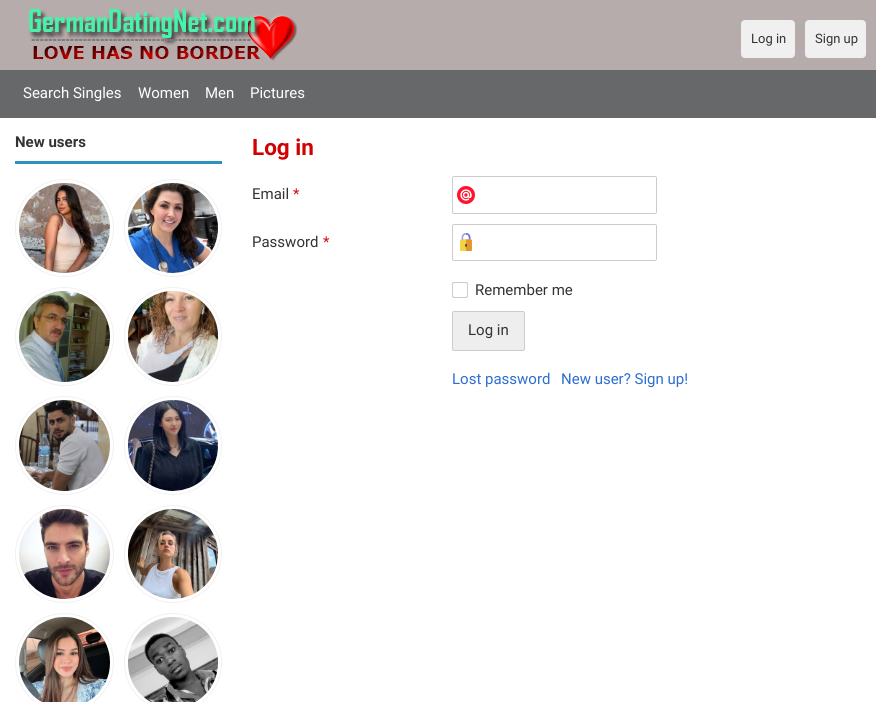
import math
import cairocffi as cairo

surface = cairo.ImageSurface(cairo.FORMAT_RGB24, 876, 702)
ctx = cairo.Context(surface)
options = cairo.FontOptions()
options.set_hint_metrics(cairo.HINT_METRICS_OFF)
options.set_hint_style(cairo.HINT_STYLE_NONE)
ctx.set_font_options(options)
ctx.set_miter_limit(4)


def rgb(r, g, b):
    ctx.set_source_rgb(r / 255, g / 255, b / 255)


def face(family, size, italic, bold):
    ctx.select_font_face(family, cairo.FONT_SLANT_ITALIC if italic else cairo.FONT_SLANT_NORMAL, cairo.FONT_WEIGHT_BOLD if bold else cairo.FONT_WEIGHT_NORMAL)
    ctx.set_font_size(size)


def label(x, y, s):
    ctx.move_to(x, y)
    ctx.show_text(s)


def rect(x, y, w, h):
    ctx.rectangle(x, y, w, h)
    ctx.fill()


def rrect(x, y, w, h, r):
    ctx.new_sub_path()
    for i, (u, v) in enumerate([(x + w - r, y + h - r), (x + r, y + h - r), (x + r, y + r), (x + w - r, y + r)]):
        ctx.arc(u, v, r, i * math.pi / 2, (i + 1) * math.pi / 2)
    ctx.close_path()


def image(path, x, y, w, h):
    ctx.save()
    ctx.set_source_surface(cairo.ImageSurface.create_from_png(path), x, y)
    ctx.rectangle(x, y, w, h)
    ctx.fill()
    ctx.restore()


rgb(255, 255, 255)
ctx.paint()
rgb(183, 172, 172)
rect(0, 0, 876, 70)
image('image0.png', 29, 9, 269, 52)
rgb(102, 104, 106)
rect(0, 70, 876, 48)
rgb(240, 240, 240)
rrect(741, 20, 54, 38, 4)
ctx.fill()
face('Roboto', 13, 0, 0)
rgb(51, 51, 51)
label(751, 43, 'Log in')
rgb(240, 240, 240)
rrect(805, 20, 61, 38, 4)
ctx.fill()
rgb(51, 51, 51)
label(815, 43, 'Sign up')
face('Roboto', 15, 0, 0)
rgb(255, 255, 255)
label(23, 98, 'Search Singles')
label(138, 98, 'Women')
label(205, 98, 'Men')
label(250, 98, 'Pictures')
rgb(45, 145, 192)
rect(15, 161, 207, 3)
face('Roboto', 15, 0, 1)
rgb(51, 51, 51)
label(15, 147, 'New users')
rrect(15.5, 179.5, 98, 97, 48.5)
rgb(241, 241, 241)
ctx.set_line_width(1)
ctx.stroke()
image('image1.png', 19, 183, 91, 90)
ctx.arc(173, 228, 48.5, 0, 2 * math.pi)
ctx.stroke()
image('image2.png', 128, 183, 90, 90)
ctx.arc(64.5, 336.5, 49, 0, 2 * math.pi)
ctx.stroke()
image('image3.png', 19, 291, 91, 91)
rrect(124.5, 287.5, 97, 98, 48.5)
ctx.stroke()
image('image4.png', 128, 291, 90, 91)
ctx.arc(64.5, 445.5, 49, 0, 2 * math.pi)
ctx.stroke()
image('image5.png', 19, 400, 91, 91)
rrect(124.5, 396.5, 97, 98, 48.5)
ctx.stroke()
image('image6.png', 128, 400, 90, 91)
rrect(15.5, 505.5, 98, 97, 48.5)
ctx.stroke()
image('image7.png', 19, 509, 91, 90)
ctx.arc(173, 554, 48.5, 0, 2 * math.pi)
ctx.stroke()
image('image8.png', 128, 509, 90, 90)
ctx.arc(64.5, 662.5, 49, 0, 2 * math.pi)
ctx.stroke()
image('image9.png', 19, 617, 91, 85)
rrect(124.5, 613.5, 97, 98, 48.5)
ctx.stroke()
image('image10.png', 128, 617, 90, 85)
face('Roboto', 22.5, 0, 1)
rgb(210, 0, 0)
label(252, 155, 'Log in')
face('Roboto', 15, 0, 0)
rgb(51, 51, 51)
label(252, 199, 'Email')
rgb(208, 14, 18)
label(293, 199, '*')
image('image11.png', 457, 186, 18, 18)
rrect(452.5, 176.5, 204, 37, 1.5)
rgb(204, 204, 204)
ctx.stroke()
rgb(51, 51, 51)
label(252, 247, 'Password')
rgb(208, 14, 18)
label(323, 247, '*')
image('image12.png', 460, 233, 12, 18)
rrect(452.5, 224.5, 204, 36, 1.5)
rgb(204, 204, 204)
ctx.stroke()
image('image13.png', 452, 282, 16, 16)
rgb(51, 51, 51)
label(475, 295, 'Remember me')
rgb(238, 238, 238)
rrect(452.5, 311.5, 72, 39, 1.5)
ctx.fill_preserve()
rgb(204, 204, 204)
ctx.stroke()
rgb(51, 51, 51)
label(468, 335, 'Log in')
rgb(46, 110, 207)
label(452, 384, 'Lost password')
label(561, 384, 'New user? Sign up!')
surface.write_to_png('render.png')
